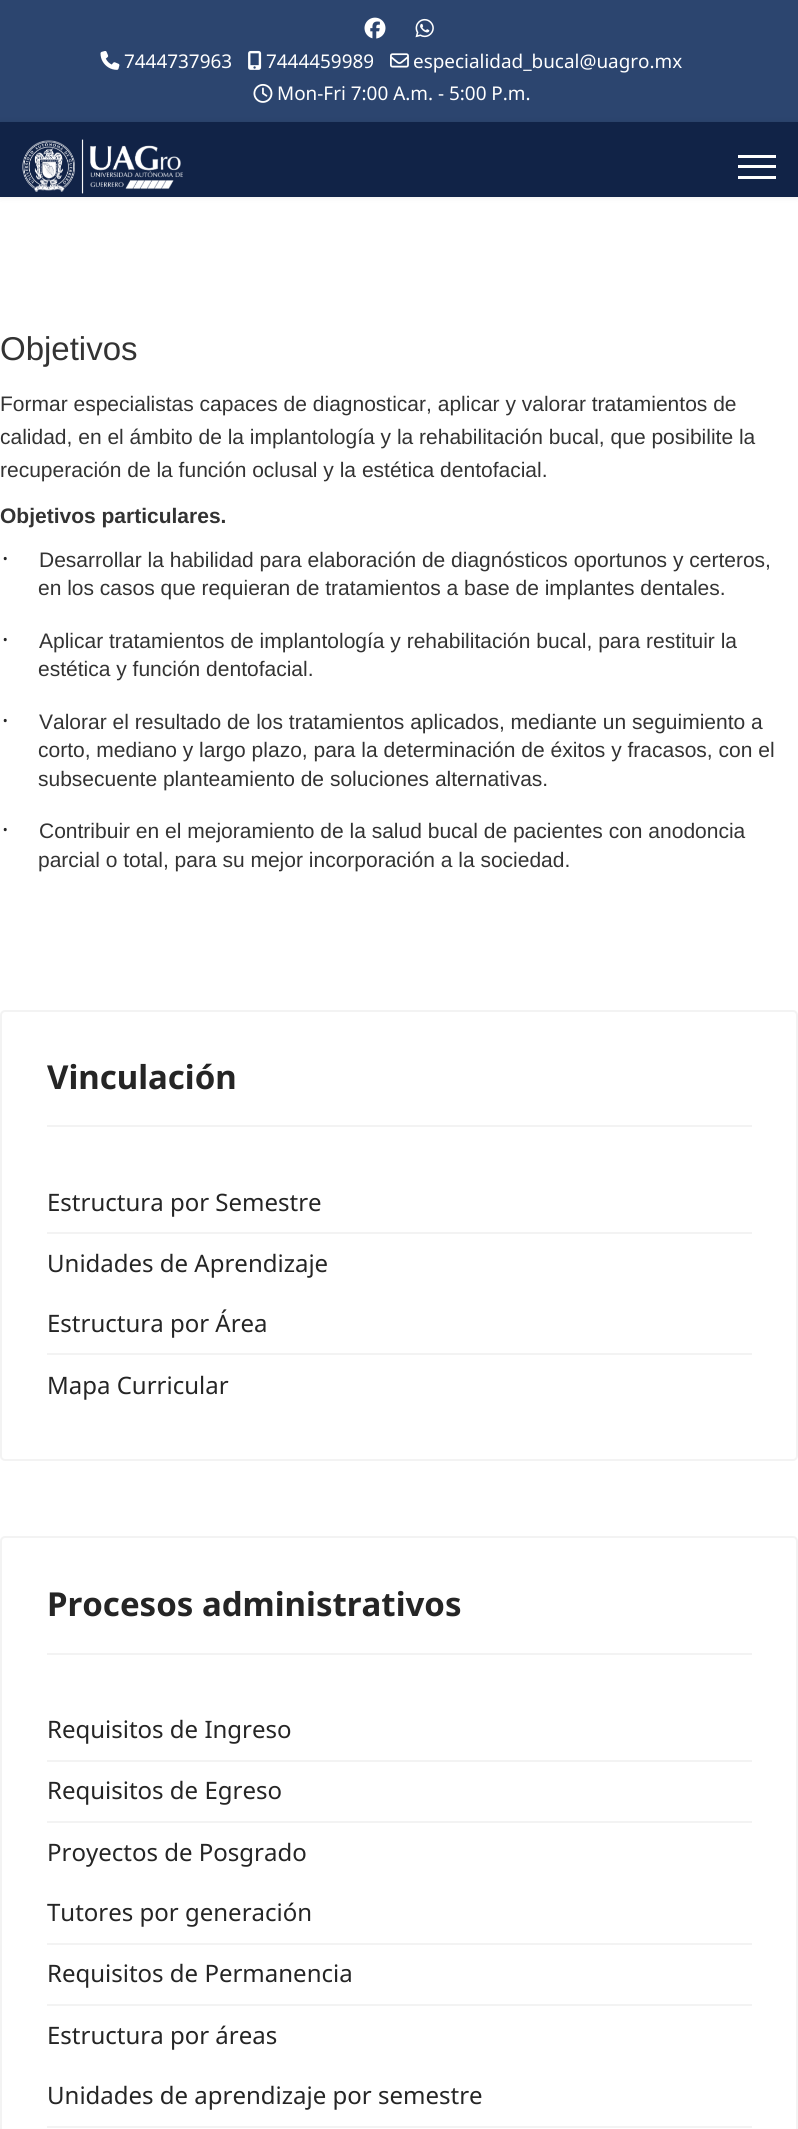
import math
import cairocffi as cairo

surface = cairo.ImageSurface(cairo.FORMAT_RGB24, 798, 2129)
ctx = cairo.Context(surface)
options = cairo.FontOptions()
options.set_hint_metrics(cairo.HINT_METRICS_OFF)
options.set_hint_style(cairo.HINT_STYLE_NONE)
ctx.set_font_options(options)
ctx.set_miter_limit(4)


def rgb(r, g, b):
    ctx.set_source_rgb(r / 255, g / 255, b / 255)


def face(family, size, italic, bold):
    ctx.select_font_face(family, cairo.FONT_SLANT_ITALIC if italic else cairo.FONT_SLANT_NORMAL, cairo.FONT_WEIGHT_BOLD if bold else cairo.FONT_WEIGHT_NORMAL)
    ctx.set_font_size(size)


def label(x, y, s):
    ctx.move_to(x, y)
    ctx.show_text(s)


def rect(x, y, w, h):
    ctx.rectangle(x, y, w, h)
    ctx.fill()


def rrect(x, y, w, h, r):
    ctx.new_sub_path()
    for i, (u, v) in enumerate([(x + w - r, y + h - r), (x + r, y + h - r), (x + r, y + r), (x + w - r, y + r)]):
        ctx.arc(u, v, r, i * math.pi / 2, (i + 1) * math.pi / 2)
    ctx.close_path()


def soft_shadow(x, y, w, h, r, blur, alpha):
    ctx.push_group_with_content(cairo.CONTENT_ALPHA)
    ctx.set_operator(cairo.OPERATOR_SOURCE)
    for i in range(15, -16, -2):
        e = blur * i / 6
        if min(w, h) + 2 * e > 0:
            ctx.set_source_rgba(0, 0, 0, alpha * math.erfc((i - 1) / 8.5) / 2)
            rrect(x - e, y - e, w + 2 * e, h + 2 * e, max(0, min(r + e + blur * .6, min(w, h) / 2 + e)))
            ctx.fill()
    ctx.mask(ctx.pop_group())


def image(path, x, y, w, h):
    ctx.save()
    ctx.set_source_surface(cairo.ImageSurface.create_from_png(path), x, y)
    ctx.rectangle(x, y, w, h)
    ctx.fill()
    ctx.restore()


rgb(255, 255, 255)
ctx.paint()
rgb(44, 69, 111)
rect(0, 0, 798, 122)
image('image0.png', 364, 17, 22, 22)
image('image1.png', 415, 18, 19, 20)
image('image2.png', 100, 51, 20, 19)
face('Noto Sans', 18.9, 0, 0)
rgb(255, 255, 255)
label(124, 68, '7444737963')
image('image3.png', 248, 50, 14, 20)
label(266, 68, '7444459989')
image('image4.png', 390, 53, 19, 15)
label(413, 68, 'especialidad_bucal@uagro.mx')
image('image5.png', 253, 84, 20, 19)
label(277, 100, 'Mon-Fri 7:00 A.m. - 5:00 P.m.')
rgb(0, 0, 0)
soft_shadow(0, 122, 798, 75, 0, 3, 0.1)
rgb(17, 35, 71)
rect(0, 122, 798, 75)
image('image6.png', 22, 139, 161, 55)
rgb(255, 255, 255)
rect(738, 155, 38, 3)
rect(738, 165, 38, 3)
rect(738, 176, 38, 3)
face('Liberation Sans', 33, 0, 0)
rgb(51, 51, 51)
label(0, 360, 'Objetivos')
face('Liberation Sans', 21, 0, 0)
label(0, 411, 'Formar especialistas capaces de diagnosticar, aplicar y valorar tratamientos de')
label(0, 444, 'calidad, en el ámbito de la implantología y la rehabilitación bucal, que posibilite la')
label(0, 477, 'recuperación de la función oclusal y la estética dentofacial.')
face('Liberation Sans', 21, 0, 1)
label(0, 523, 'Objetivos particulares.')
face('Noto Sans', 24, 0, 0)
rgb(37, 37, 37)
label(2, 567, '·')
face('Liberation Sans', 21, 0, 0)
rgb(51, 51, 51)
label(39, 567, 'Desarrollar la habilidad para elaboración de diagnósticos oportunos y certeros,')
label(38, 595, 'en los casos que requieran de tratamientos a base de implantes dentales.')
face('Noto Sans', 24, 0, 0)
rgb(37, 37, 37)
label(2, 648, '·')
face('Liberation Sans', 21, 0, 0)
rgb(51, 51, 51)
label(39, 648, 'Aplicar tratamientos de implantología y rehabilitación bucal, para restituir la')
label(38, 676, 'estética y función dentofacial.')
face('Noto Sans', 24, 0, 0)
rgb(37, 37, 37)
label(2, 729, '·')
face('Liberation Sans', 21, 0, 0)
rgb(51, 51, 51)
label(39, 729, 'Valorar el resultado de los tratamientos aplicados, mediante un seguimiento a')
label(38, 757, 'corto, mediano y largo plazo, para la determinación de éxitos y fracasos, con el')
label(38, 786, 'subsecuente planteamiento de soluciones alternativas.')
face('Noto Sans', 24, 0, 0)
rgb(37, 37, 37)
label(2, 838, '·')
face('Liberation Sans', 21, 0, 0)
rgb(51, 51, 51)
label(39, 838, 'Contribuir en el mejoramiento de la salud bucal de pacientes con anodoncia')
label(38, 867, 'parcial o total, para su mejor incorporación a la sociedad.')
rrect(1, 1011, 796, 449, 4)
rgb(243, 243, 243)
ctx.stroke()
rect(47, 1125, 705, 2)
face('Noto Sans', 33, 0, 1)
rgb(37, 37, 37)
label(47, 1089, 'Vinculación')
rgb(243, 243, 243)
rect(47, 1232, 705, 2)
face('Noto Sans', 24, 0, 0)
rgb(37, 37, 37)
label(47, 1211, 'Estructura por Semestre')
rgb(243, 243, 243)
rect(47, 1353, 705, 2)
rgb(37, 37, 37)
label(47, 1272, 'Unidades de Aprendizaje')
label(47, 1332, 'Estructura por Área')
label(47, 1394, 'Mapa Curricular')
rrect(1, 1537, 796, 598, 4)
rgb(243, 243, 243)
ctx.stroke()
rect(47, 1653, 705, 2)
face('Noto Sans', 33, 0, 1)
rgb(37, 37, 37)
label(47, 1616, 'Procesos administrativos')
rgb(243, 243, 243)
rect(47, 1760, 705, 2)
face('Noto Sans', 24, 0, 0)
rgb(37, 37, 37)
label(47, 1738, 'Requisitos de Ingreso')
rgb(243, 243, 243)
rect(47, 1821, 705, 2)
rgb(37, 37, 37)
label(47, 1799, 'Requisitos de Egreso')
rgb(243, 243, 243)
rect(47, 1943, 705, 2)
rgb(37, 37, 37)
label(47, 1861, 'Proyectos de Posgrado')
label(47, 1921, 'Tutores por generación')
rgb(243, 243, 243)
rect(47, 2004, 705, 2)
rgb(37, 37, 37)
label(47, 1982, 'Requisitos de Permanencia')
rgb(243, 243, 243)
rect(47, 2126, 705, 2)
rgb(37, 37, 37)
label(47, 2044, 'Estructura por áreas')
label(47, 2104, 'Unidades de aprendizaje por semestre')
surface.write_to_png('render.png')
